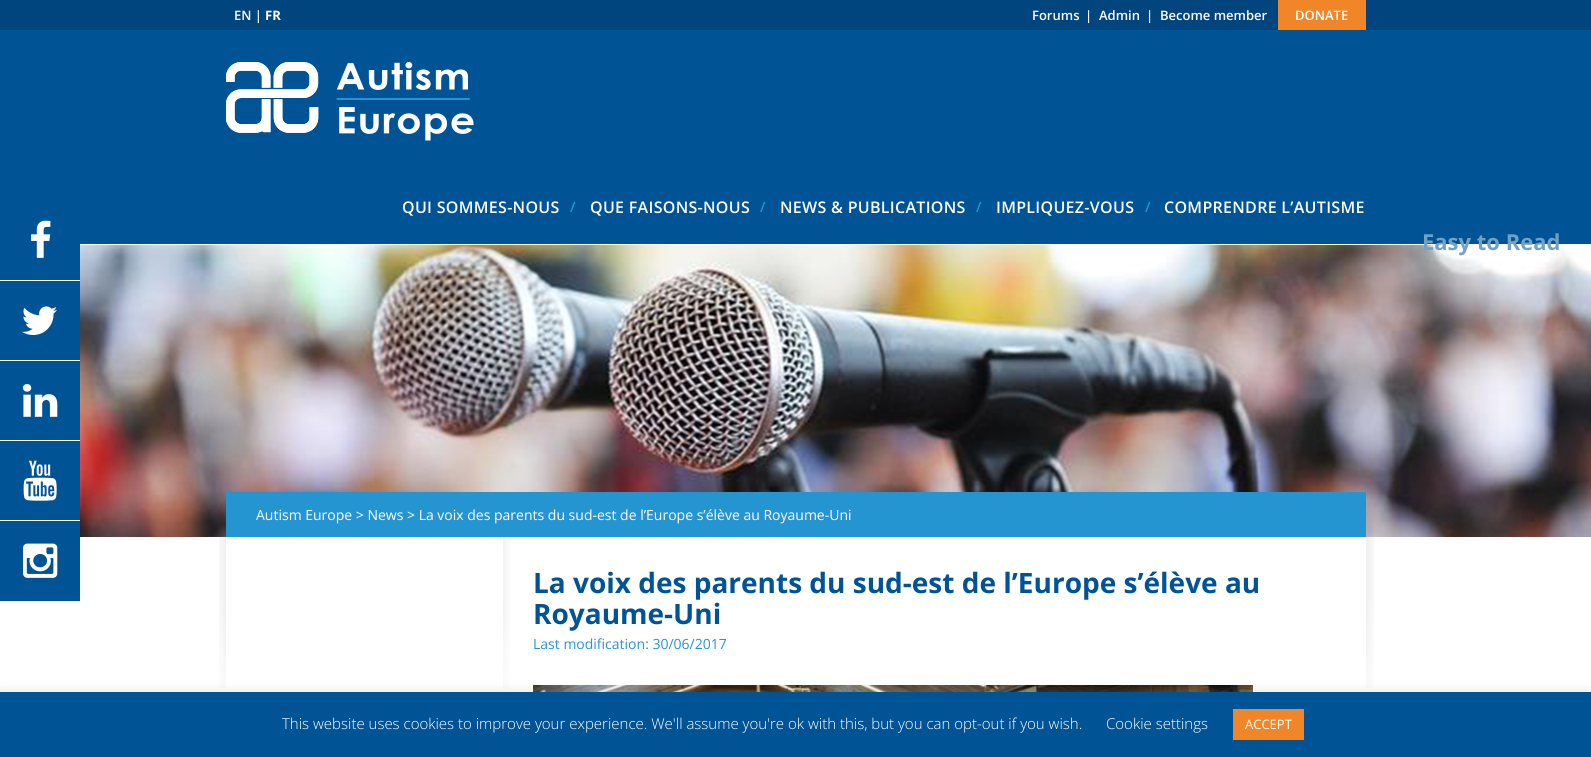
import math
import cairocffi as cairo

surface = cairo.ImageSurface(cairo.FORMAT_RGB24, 1591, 757)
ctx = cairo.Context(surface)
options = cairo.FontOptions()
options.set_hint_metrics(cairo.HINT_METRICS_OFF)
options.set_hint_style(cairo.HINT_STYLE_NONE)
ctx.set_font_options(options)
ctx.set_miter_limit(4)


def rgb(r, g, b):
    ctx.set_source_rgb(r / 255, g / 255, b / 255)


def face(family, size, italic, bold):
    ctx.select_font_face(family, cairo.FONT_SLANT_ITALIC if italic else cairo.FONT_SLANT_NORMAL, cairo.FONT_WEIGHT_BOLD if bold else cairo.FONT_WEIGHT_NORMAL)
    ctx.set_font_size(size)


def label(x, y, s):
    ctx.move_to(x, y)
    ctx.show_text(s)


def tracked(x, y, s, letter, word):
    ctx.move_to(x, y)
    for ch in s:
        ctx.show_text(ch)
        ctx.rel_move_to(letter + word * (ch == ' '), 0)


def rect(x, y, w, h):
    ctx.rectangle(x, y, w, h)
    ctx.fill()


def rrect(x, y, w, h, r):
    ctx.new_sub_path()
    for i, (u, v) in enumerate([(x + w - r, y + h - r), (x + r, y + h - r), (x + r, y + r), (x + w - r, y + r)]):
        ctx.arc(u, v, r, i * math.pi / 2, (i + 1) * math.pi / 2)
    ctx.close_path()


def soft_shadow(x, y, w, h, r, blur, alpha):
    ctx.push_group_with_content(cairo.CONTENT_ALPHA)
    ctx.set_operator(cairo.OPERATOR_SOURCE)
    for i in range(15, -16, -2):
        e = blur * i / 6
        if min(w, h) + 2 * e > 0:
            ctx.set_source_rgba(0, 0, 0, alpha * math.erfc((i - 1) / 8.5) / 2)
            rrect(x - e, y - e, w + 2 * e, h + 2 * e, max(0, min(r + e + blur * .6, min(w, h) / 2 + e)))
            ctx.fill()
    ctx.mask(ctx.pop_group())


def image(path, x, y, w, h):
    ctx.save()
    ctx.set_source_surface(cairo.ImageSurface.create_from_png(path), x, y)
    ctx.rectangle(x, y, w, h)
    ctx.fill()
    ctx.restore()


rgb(255, 255, 255)
ctx.paint()
rgb(0, 83, 149)
rect(0, 30, 1591, 214)
rgb(0, 69, 125)
rect(0, 0, 1591, 30)
face('Open Sans SemiBold', 13, 0, 0)
rgb(255, 255, 255)
label(234, 20, 'EN |')
face('Open Sans', 13, 0, 1)
label(265, 20, 'FR')
face('Open Sans SemiBold', 13, 0, 0)
label(1032, 20, 'Forums')
label(1085, 20, '|')
label(1099, 20, 'Admin')
label(1146, 20, '|')
label(1160, 20, 'Become member')
rgb(240, 134, 40)
rect(1278, 0, 88, 30)
rgb(255, 255, 255)
label(1295, 20, 'DONATE')
image('image0.png', 226, 62, 248, 79)
face('Open Sans SemiBold', 16, 0, 0)
tracked(402, 213, 'QUI SOMMES-NOUS', 0.3, 0)
face('Open Sans SemiBold', 14, 0, 0)
rgb(37, 149, 210)
label(570, 212, '/')
face('Open Sans SemiBold', 16, 0, 0)
rgb(255, 255, 255)
tracked(590, 213, 'QUE FAISONS-NOUS', 0.3, 0)
face('Open Sans SemiBold', 14, 0, 0)
rgb(37, 149, 210)
label(760, 212, '/')
face('Open Sans SemiBold', 16, 0, 0)
rgb(255, 255, 255)
tracked(780, 213, 'NEWS & PUBLICATIONS', 0.3, 0)
face('Open Sans SemiBold', 14, 0, 0)
rgb(37, 149, 210)
label(976, 212, '/')
face('Open Sans SemiBold', 16, 0, 0)
rgb(255, 255, 255)
tracked(996, 213, 'IMPLIQUEZ-VOUS', 0.3, 0)
face('Open Sans SemiBold', 14, 0, 0)
rgb(37, 149, 210)
label(1145, 212, '/')
face('Open Sans SemiBold', 16, 0, 0)
rgb(255, 255, 255)
tracked(1164, 213, 'COMPRENDRE L’AUTISME', 0.3, 0)
rgb(0, 83, 149)
rect(0, 244, 80, 36)
image('image1.png', 31, 220, 20, 38)
rect(0, 281, 80, 79)
image('image2.png', 22, 306, 35, 29)
rect(0, 361, 80, 79)
image('image3.png', 23, 384, 35, 33)
rect(0, 441, 80, 79)
image('image4.png', 23, 460, 34, 41)
rect(0, 521, 80, 80)
image('image5.png', 23, 543, 35, 35)
image('image6.png', 80, 245, 1511, 292)
face('Open Sans', 22, 0, 1)
rgb(115, 160, 195)
label(1422, 250, 'Easy to Read')
image('image7.png', 219, 502, 1155, 186)
rgb(37, 149, 210)
rect(226, 492, 1140, 45)
face('Open Sans', 14, 0, 0)
rgb(255, 255, 255)
label(256, 520, 'Autism Europe > News > La voix des parents du sud-est de l’Europe s’élève au Royaume-Uni')
rect(226, 537, 1140, 151)
image('image8.png', 503, 537, 7, 152)
face('Open Sans', 28, 0, 1)
rgb(0, 83, 149)
label(533, 593, 'La voix des parents du sud-est de l’Europe s’élève au')
label(533, 624, 'Royaume-Uni')
face('Open Sans', 14, 0, 0)
rgb(37, 149, 210)
label(533, 649, 'Last modification: 30/06/2017')
image('image9.png', 533, 685, 720, 7)
rgb(172, 171, 171)
soft_shadow(0, 691, 1591, 65, 0, 5, 0.3)
rgb(0, 83, 149)
rect(0, 692, 1591, 65)
face('Open Sans Light', 15, 0, 0)
rgb(255, 255, 255)
label(282, 729, 'This website uses cookies to improve your experience. We\'ll assume you\'re ok with this, but you can opt-out if you wish.')
label(1106, 729, 'Cookie settings')
rgb(240, 134, 40)
rect(1233, 709, 71, 31)
face('Open Sans', 13, 0, 0)
rgb(255, 255, 255)
label(1245, 729, 'ACCEPT')
surface.write_to_png('render.png')
